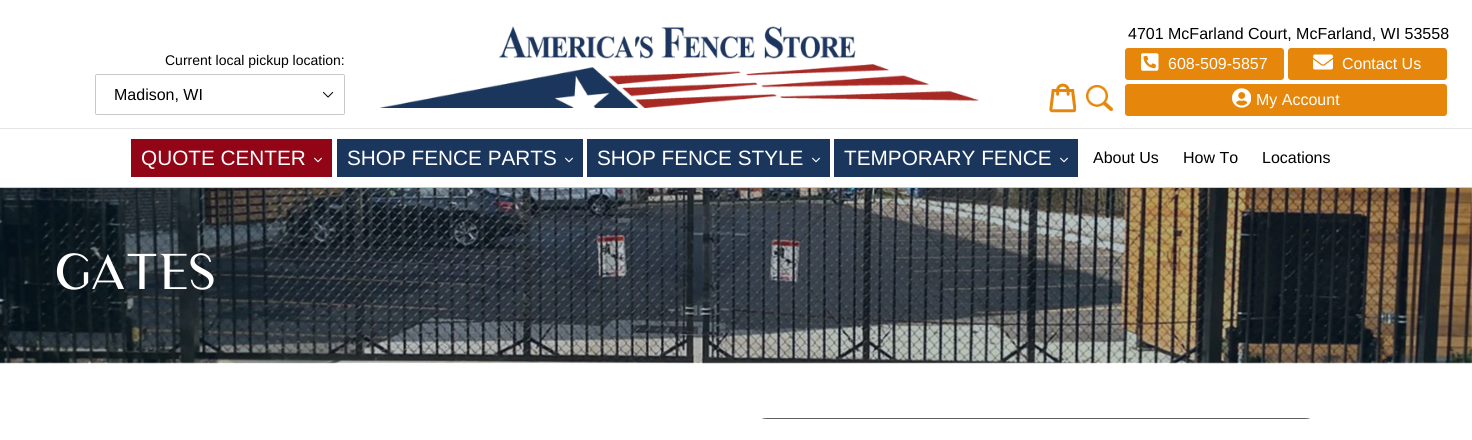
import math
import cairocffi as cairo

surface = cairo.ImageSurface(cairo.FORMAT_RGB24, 1472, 440)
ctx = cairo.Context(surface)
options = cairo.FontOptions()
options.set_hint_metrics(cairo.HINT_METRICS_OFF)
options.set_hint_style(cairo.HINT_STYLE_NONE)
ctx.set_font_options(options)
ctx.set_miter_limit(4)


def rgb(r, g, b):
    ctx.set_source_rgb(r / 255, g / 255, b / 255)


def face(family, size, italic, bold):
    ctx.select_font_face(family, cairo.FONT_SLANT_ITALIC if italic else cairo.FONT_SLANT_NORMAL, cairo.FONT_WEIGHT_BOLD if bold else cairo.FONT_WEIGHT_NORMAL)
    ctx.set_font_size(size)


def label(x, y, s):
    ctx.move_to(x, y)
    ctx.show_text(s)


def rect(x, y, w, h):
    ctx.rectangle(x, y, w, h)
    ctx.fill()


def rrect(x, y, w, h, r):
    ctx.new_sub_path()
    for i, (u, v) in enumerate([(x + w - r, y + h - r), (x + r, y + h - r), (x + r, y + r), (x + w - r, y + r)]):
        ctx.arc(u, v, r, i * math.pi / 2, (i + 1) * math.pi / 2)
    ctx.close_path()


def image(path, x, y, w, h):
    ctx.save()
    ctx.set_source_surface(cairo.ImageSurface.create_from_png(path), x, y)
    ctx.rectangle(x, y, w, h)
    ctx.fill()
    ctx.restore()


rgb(255, 255, 255)
ctx.paint()
rgb(230, 230, 230)
rect(0, 128, 1472, 1)
face('Liberation Sans', 14, 0, 0)
rgb(0, 0, 0)
label(165, 65, 'Current local pickup location:')
image('image0.png', 322, 91, 12, 7)
rrect(95.5, 74.5, 249, 40, 1.5)
rgb(201, 201, 201)
ctx.set_line_width(1)
ctx.stroke()
face('Liberation Sans', 16, 0, 0)
rgb(0, 0, 0)
label(114, 100, 'Madison, WI')
image('image1.png', 380, 26, 599, 82)
image('image2.png', 1049, 83, 27, 30)
image('image3.png', 1086, 85, 27, 26)
label(1128, 39, '4701 McFarland Court, McFarland, WI 53558')
rgb(230, 135, 11)
rrect(1125, 48, 159, 32, 3)
ctx.fill()
image('image4.png', 1141, 53, 18, 18)
rgb(255, 255, 255)
label(1168, 69, '608-509-5857')
rgb(230, 135, 11)
rrect(1288, 48, 159, 32, 3)
ctx.fill()
image('image5.png', 1313, 54, 20, 16)
rgb(255, 255, 255)
label(1342, 69, 'Contact Us')
rgb(230, 135, 11)
rrect(1125, 84, 322, 32, 3)
ctx.fill()
image('image6.png', 1232, 88, 19, 20)
rgb(255, 255, 255)
label(1256, 105, 'My Account')
rgb(201, 201, 201)
rect(0, 187, 1472, 1)
rgb(145, 5, 22)
rect(131, 139, 201, 38)
face('Liberation Sans', 20.75, 0, 0)
rgb(255, 255, 255)
label(141, 165, 'QUOTE CENTER')
image('image7.png', 314, 157, 8, 6)
rgb(26, 54, 93)
rect(337, 139, 246, 38)
rgb(255, 255, 255)
label(347, 165, 'SHOP FENCE PARTS')
image('image8.png', 565, 157, 8, 6)
rgb(26, 54, 93)
rect(587, 139, 243, 38)
rgb(255, 255, 255)
label(597, 165, 'SHOP FENCE STYLE')
image('image8.png', 812, 157, 8, 6)
rgb(26, 54, 93)
rect(834, 139, 244, 38)
rgb(255, 255, 255)
label(844, 165, 'TEMPORARY FENCE')
image('image8.png', 1060, 157, 8, 6)
face('Liberation Sans', 16, 0, 0)
rgb(0, 0, 0)
label(1093, 163, 'About Us')
label(1183, 163, 'How To')
label(1262, 163, 'Locations')
image('image9.png', 0, 188, 1472, 176)
face('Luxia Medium', 48, 0, 0)
rgb(255, 255, 255)
label(55, 289, 'GATES')
image('image10.png', 762, 418, 548, 1)
surface.write_to_png('render.png')
